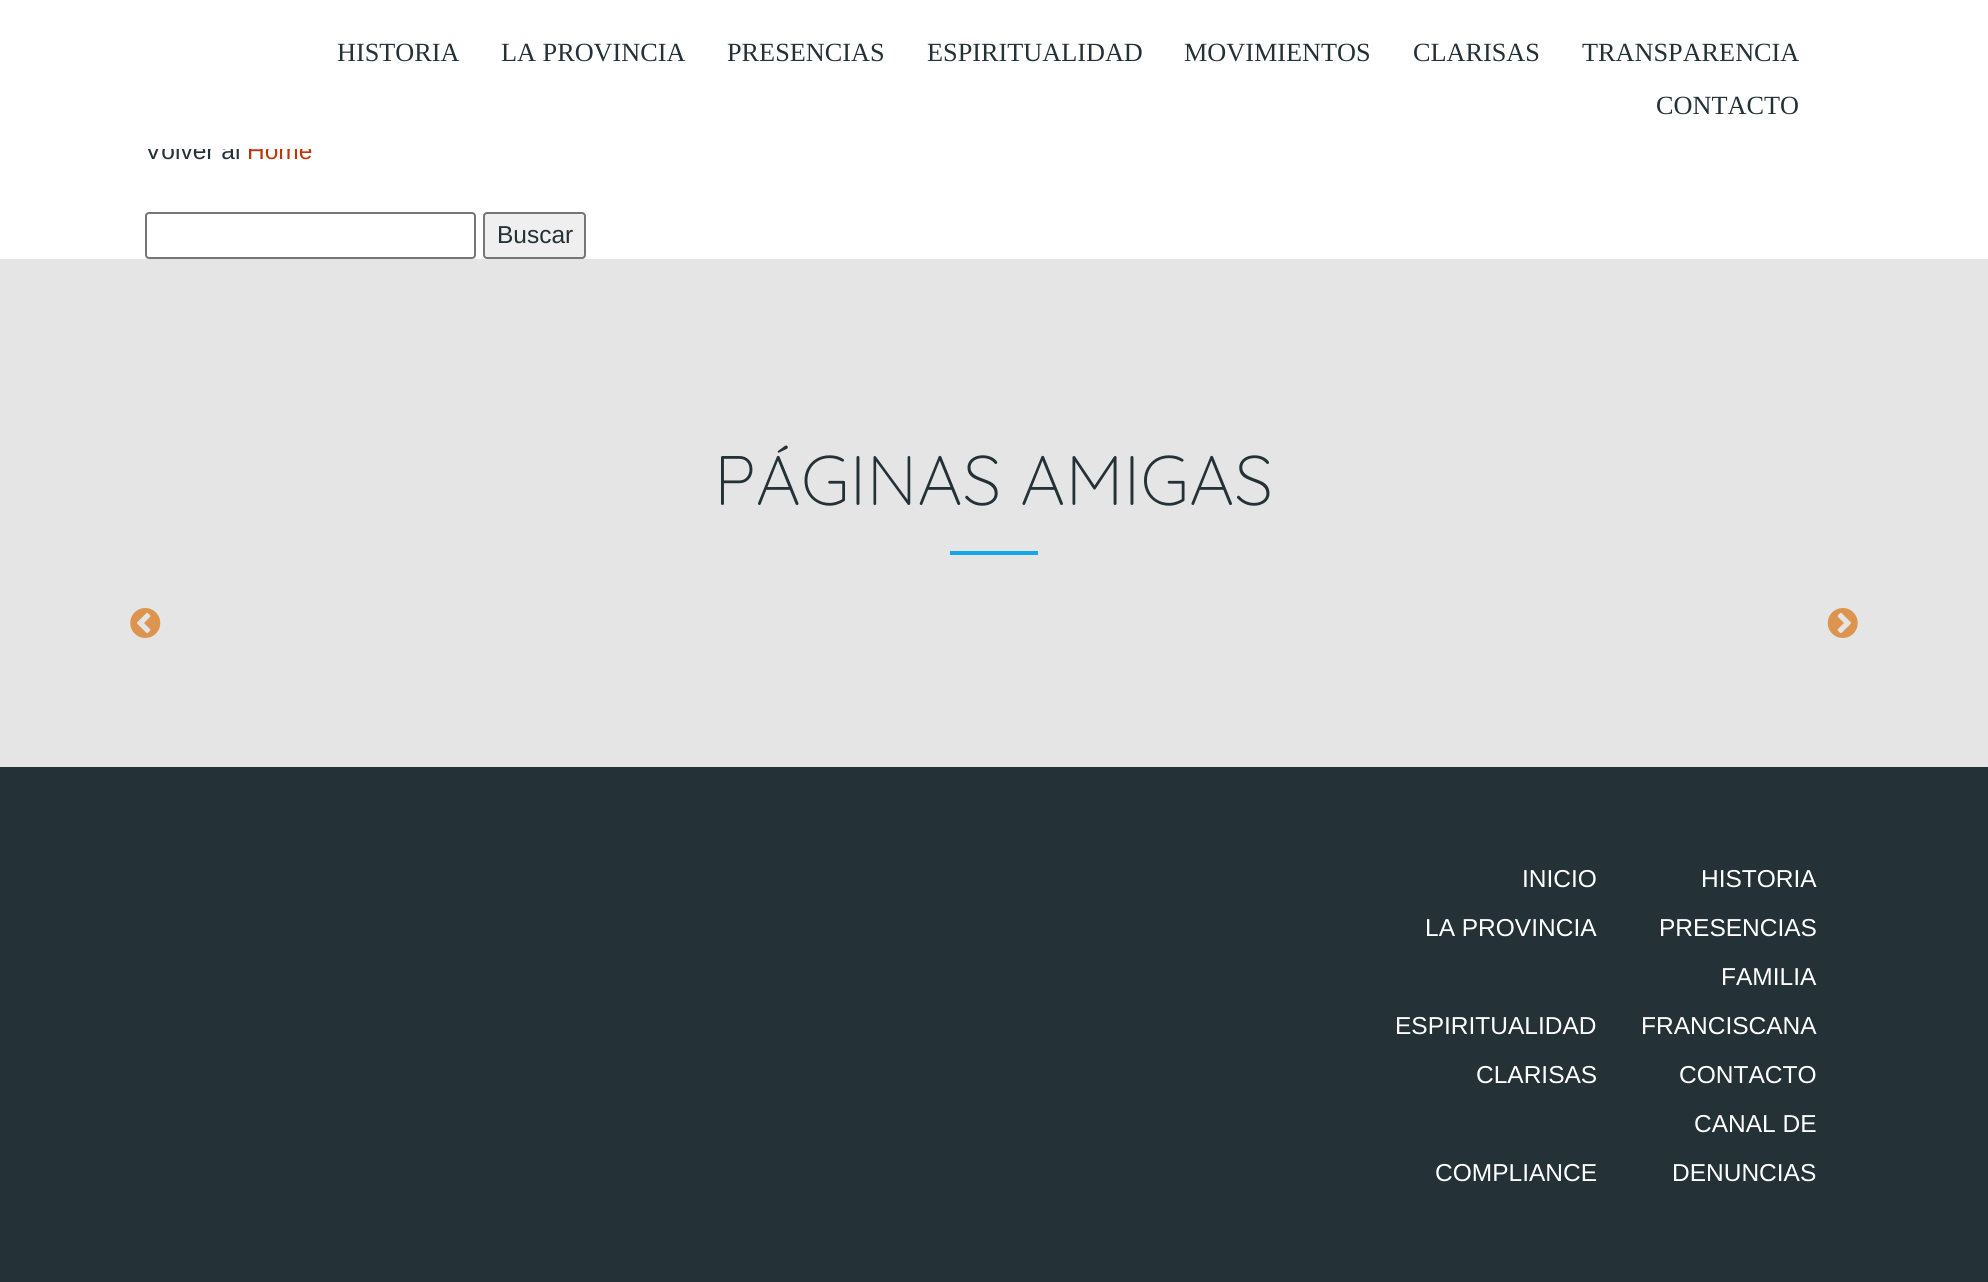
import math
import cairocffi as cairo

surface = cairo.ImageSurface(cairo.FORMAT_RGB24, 1988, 1282)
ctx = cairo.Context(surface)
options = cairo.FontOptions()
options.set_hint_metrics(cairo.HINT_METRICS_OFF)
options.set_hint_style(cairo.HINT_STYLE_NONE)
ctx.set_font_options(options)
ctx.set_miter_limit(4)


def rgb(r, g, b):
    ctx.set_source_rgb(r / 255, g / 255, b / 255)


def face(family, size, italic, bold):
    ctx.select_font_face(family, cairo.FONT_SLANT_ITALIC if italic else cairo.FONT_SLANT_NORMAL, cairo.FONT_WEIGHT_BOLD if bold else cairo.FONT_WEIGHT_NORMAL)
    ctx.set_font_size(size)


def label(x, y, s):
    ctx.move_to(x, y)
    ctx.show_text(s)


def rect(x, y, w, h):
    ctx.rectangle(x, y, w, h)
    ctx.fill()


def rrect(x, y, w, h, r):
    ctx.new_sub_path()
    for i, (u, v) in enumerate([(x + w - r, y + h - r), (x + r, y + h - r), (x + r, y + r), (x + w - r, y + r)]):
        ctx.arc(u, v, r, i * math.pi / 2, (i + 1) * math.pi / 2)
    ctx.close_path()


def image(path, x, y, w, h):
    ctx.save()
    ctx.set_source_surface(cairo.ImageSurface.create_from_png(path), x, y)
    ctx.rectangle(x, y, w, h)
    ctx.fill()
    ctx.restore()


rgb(255, 255, 255)
ctx.paint()
face('Liberation Sans', 24.5, 0, 0)
rgb(36, 49, 55)
label(145, 159, 'Volver al')
rgb(188, 54, 10)
label(247, 159, 'Home')
rgb(255, 255, 255)
rect(145, 141, 166, 8)
face('Liberation Serif', 26.25, 0, 0)
rgb(36, 49, 55)
label(337, 61, 'HISTORIA')
label(501, 61, 'LA PROVINCIA')
label(727, 61, 'PRESENCIAS')
label(927, 61, 'ESPIRITUALIDAD')
label(1184, 61, 'MOVIMIENTOS')
label(1413, 61, 'CLARISAS')
label(1582, 61, 'TRANSPARENCIA')
label(1656, 114, 'CONTACTO')
rrect(146, 213, 329, 45, 3)
rgb(118, 118, 118)
ctx.stroke()
rgb(239, 239, 239)
rrect(484, 213, 101, 45, 3)
ctx.fill_preserve()
rgb(118, 118, 118)
ctx.stroke()
face('Liberation Sans', 24.5, 0, 0)
rgb(36, 49, 55)
label(497, 243, 'Buscar')
rgb(229, 229, 229)
rect(0, 259, 1988, 508)
face('Quicksand Light', 70, 0, 0)
rgb(36, 49, 55)
label(714, 505, 'PÁGINAS AMIGAS')
rgb(21, 165, 235)
rect(950, 551, 88, 4)
image('image0.png', 130, 608, 31, 30)
image('image1.png', 1827, 608, 31, 30)
rgb(36, 49, 55)
rect(0, 767, 1988, 515)
face('Liberation Sans', 24.5, 0, 0)
rgb(255, 255, 255)
label(1522, 887, 'INICIO')
label(1701, 887, 'HISTORIA')
label(1425, 936, 'LA PROVINCIA')
label(1659, 936, 'PRESENCIAS')
label(1395, 1034, 'ESPIRITUALIDAD')
label(1721, 985, 'FAMILIA')
label(1641, 1034, 'FRANCISCANA')
label(1476, 1083, 'CLARISAS')
label(1679, 1083, 'CONTACTO')
label(1435, 1181, 'COMPLIANCE')
label(1694, 1132, 'CANAL DE')
label(1672, 1181, 'DENUNCIAS')
surface.write_to_png('render.png')
